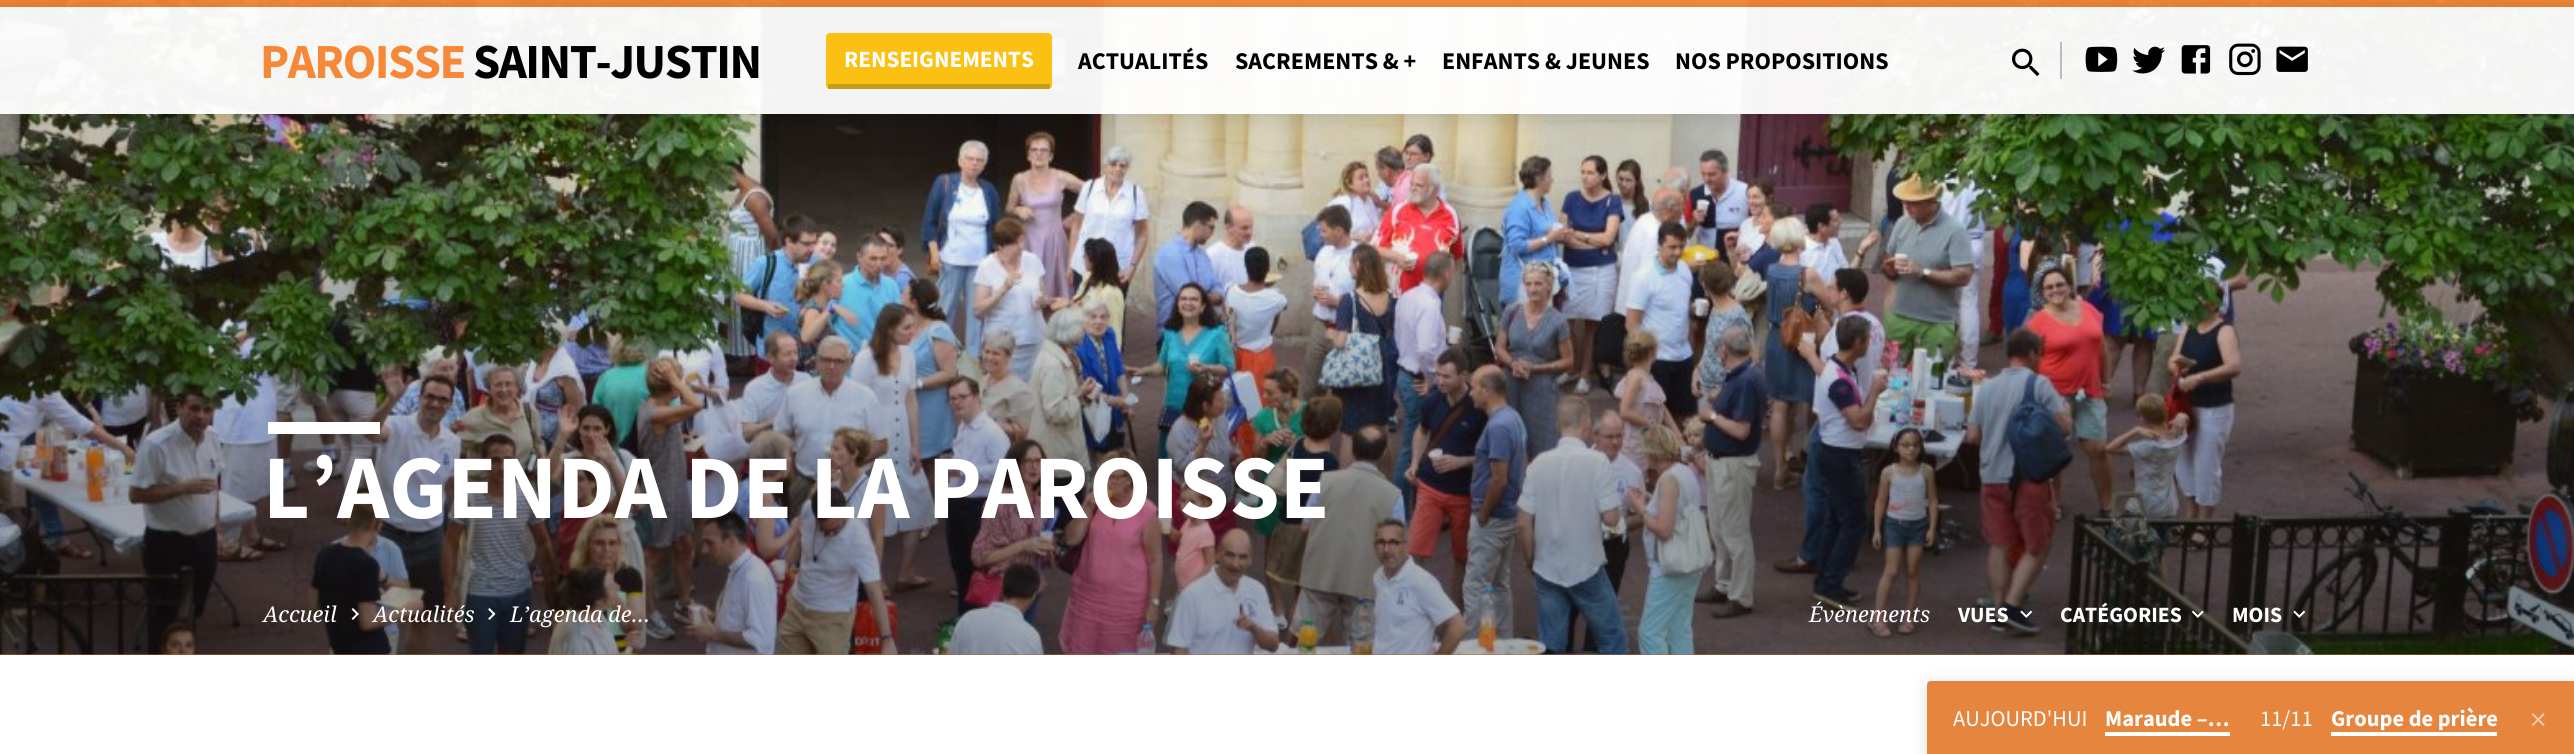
import math
import cairocffi as cairo

surface = cairo.ImageSurface(cairo.FORMAT_RGB24, 2574, 754)
ctx = cairo.Context(surface)
options = cairo.FontOptions()
options.set_hint_metrics(cairo.HINT_METRICS_OFF)
options.set_hint_style(cairo.HINT_STYLE_NONE)
ctx.set_font_options(options)
ctx.set_miter_limit(4)


def rgb(r, g, b):
    ctx.set_source_rgb(r / 255, g / 255, b / 255)


def face(family, size, italic, bold):
    ctx.select_font_face(family, cairo.FONT_SLANT_ITALIC if italic else cairo.FONT_SLANT_NORMAL, cairo.FONT_WEIGHT_BOLD if bold else cairo.FONT_WEIGHT_NORMAL)
    ctx.set_font_size(size)


def label(x, y, s):
    ctx.move_to(x, y)
    ctx.show_text(s)


def tracked(x, y, s, letter, word):
    ctx.move_to(x, y)
    for ch in s:
        ctx.show_text(ch)
        ctx.rel_move_to(letter + word * (ch == ' '), 0)


def rect(x, y, w, h):
    ctx.rectangle(x, y, w, h)
    ctx.fill()


def rrect(x, y, w, h, r):
    ctx.new_sub_path()
    for i, (u, v) in enumerate([(x + w - r, y + h - r), (x + r, y + h - r), (x + r, y + r), (x + w - r, y + r)]):
        ctx.arc(u, v, r, i * math.pi / 2, (i + 1) * math.pi / 2)
    ctx.close_path()


def soft_shadow(x, y, w, h, r, blur, alpha):
    ctx.push_group_with_content(cairo.CONTENT_ALPHA)
    ctx.set_operator(cairo.OPERATOR_SOURCE)
    for i in range(15, -16, -2):
        e = blur * i / 6
        if min(w, h) + 2 * e > 0:
            ctx.set_source_rgba(0, 0, 0, alpha * math.erfc((i - 1) / 8.5) / 2)
            rrect(x - e, y - e, w + 2 * e, h + 2 * e, max(0, min(r + e + blur * .6, min(w, h) / 2 + e)))
            ctx.fill()
    ctx.mask(ctx.pop_group())


def image(path, x, y, w, h):
    ctx.save()
    ctx.set_source_surface(cairo.ImageSurface.create_from_png(path), x, y)
    ctx.rectangle(x, y, w, h)
    ctx.fill()
    ctx.restore()


rgb(255, 255, 255)
ctx.paint()
rgb(246, 142, 65)
rect(0, 0, 2574, 655)
image('image6.png', 0, 0, 2574, 655)
ctx.set_source_rgba(0.965, 0.533, 0.216, 0.95)
rect(0, 0, 2574, 7)
ctx.set_source_rgba(1, 1, 1, 0.95)
rect(0, 7, 2574, 107)
ctx.save()
ctx.set_fill_rule(cairo.FILL_RULE_EVEN_ODD)
ctx.new_path()
ctx.move_to(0, 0)
ctx.line_to(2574, 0)
ctx.line_to(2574, 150)
ctx.line_to(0, 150)
ctx.close_path()
ctx.move_to(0, 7)
ctx.line_to(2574, 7)
ctx.line_to(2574, 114)
ctx.line_to(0, 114)
ctx.close_path()
ctx.clip()
rgb(0, 0, 0)
soft_shadow(0, 11, 2574, 106, 0, 10.5, 0.14)
ctx.restore()
face('Source Sans Pro', 49, 0, 1)
rgb(246, 136, 55)
tracked(260, 78, 'PAROISSE', -1.5, 0)
rgb(0, 0, 0)
tracked(473, 78, 'SAINT-JUSTIN', -1.5, 0)
rgb(251, 193, 18)
rrect(826, 33, 226, 56, 4)
ctx.fill()
ctx.set_source_rgba(0.196, 0.196, 0.196, 0.25)
rect(828, 84, 222, 5)
face('Source Sans Pro', 23.25, 0, 1)
rgb(255, 255, 255)
label(844, 67, 'RENSEIGNEMENTS')
face('Source Sans Pro', 24, 0, 1)
rgb(0, 0, 0)
label(1078, 69, 'ACTUALITÉS')
label(1235, 69, 'SACREMENTS & +')
label(1442, 69, 'ENFANTS & JEUNES')
label(1675, 69, 'NOS PROPOSITIONS')
image('image0.png', 2012, 48, 28, 29)
rgb(187, 187, 187)
rect(2060, 42, 2, 37)
image('image1.png', 2085, 46, 33, 26)
image('image2.png', 2132, 46, 33, 28)
image('image3.png', 2181, 45, 30, 29)
image('image4.png', 2229, 43, 32, 33)
image('image5.png', 2276, 46, 32, 26)
gradient = cairo.LinearGradient(1287, 0, 1287, 655)
gradient.add_color_stop_rgba(0, 0, 0, 0, 0)
gradient.add_color_stop_rgba(0.36, 0, 0, 0, 0)
gradient.add_color_stop_rgba(0.76, 0, 0, 0, 0.28)
gradient.add_color_stop_rgba(1, 0, 0, 0, 0.28)
ctx.set_source(gradient)
rect(0, 256, 2574, 399)
rgb(255, 255, 255)
rect(268, 422, 112, 12)
face('Source Sans Pro', 90.75, 0, 1)
label(263, 518, 'L’AGENDA DE LA PAROISSE')
face('Noto Serif', 21.75, 1, 0)
label(263, 622, 'Accueil')
image('image7.png', 351, 608, 8, 12)
label(373, 622, 'Actualités')
image('image8.png', 488, 608, 8, 12)
label(510, 622, 'L’agenda de…')
label(1809, 622, 'Évènements')
face('Source Sans Pro', 21.75, 0, 1)
label(1958, 622, 'VUES')
image('image9.png', 2020, 610, 13, 8)
label(2060, 622, 'CATÉGORIES')
image('image10.png', 2191, 610, 13, 8)
label(2232, 622, 'MOIS')
image('image11.png', 2293, 610, 13, 8)
rgb(0, 0, 0)
soft_shadow(1927, 684, 647, 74, 4, 9, 0.12)
rgb(246, 142, 65)
ctx.new_path()
ctx.move_to(1931, 681)
ctx.line_to(2574, 681)
ctx.line_to(2574, 754)
ctx.line_to(1927, 754)
ctx.line_to(1927, 685)
ctx.curve_to(1927, 683, 1929, 681, 1931, 681)
ctx.close_path()
ctx.fill()
ctx.set_source_rgba(0, 0, 0, 0.07)
rect(1927, 681, 647, 73)
face('Source Sans Pro', 22.5, 0, 0)
rgb(255, 255, 255)
label(1953, 726, 'AUJOURD\'HUI')
face('Source Sans Pro', 22.5, 0, 1)
label(2105, 726, 'Maraude –…')
rect(2105, 732, 125, 4)
face('Source Sans Pro', 22.5, 0, 0)
label(2260, 726, '11/11')
face('Source Sans Pro', 22.5, 0, 1)
label(2331, 726, 'Groupe de prière')
rect(2331, 732, 166, 4)
image('image12.png', 2531, 713, 14, 13)
surface.write_to_png('render.png')
